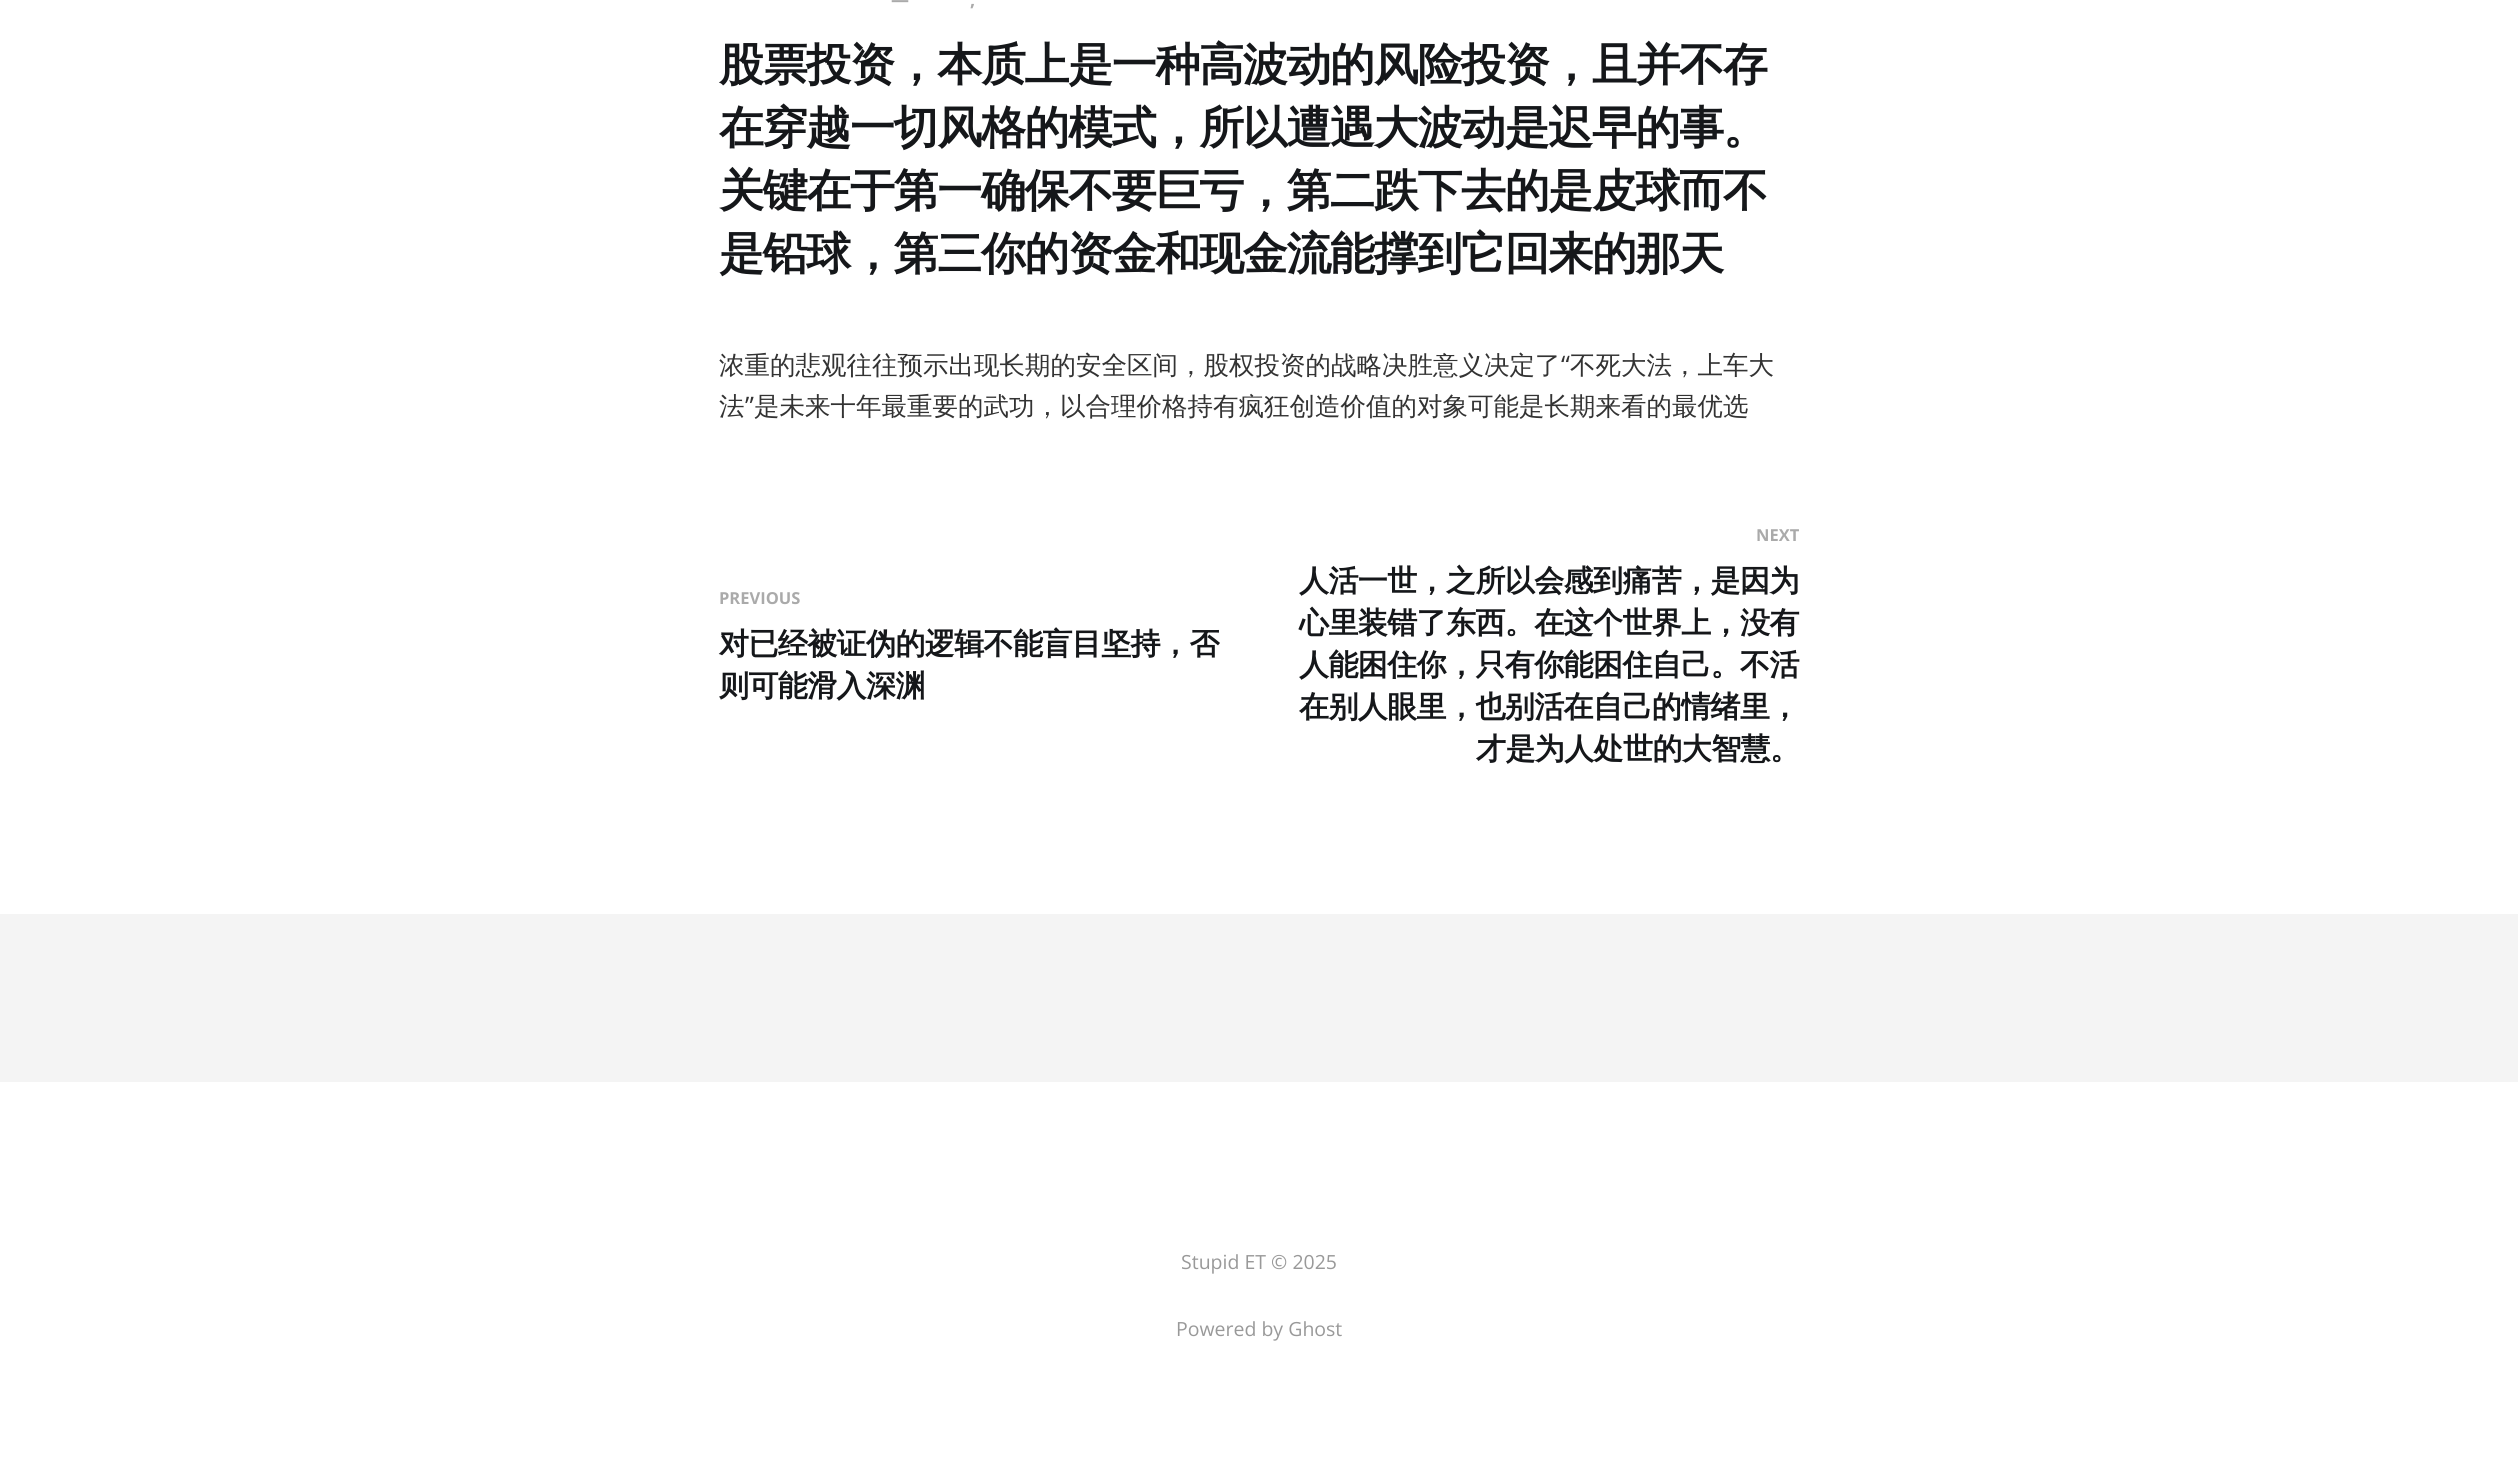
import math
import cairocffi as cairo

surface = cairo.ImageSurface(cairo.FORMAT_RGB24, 2518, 1457)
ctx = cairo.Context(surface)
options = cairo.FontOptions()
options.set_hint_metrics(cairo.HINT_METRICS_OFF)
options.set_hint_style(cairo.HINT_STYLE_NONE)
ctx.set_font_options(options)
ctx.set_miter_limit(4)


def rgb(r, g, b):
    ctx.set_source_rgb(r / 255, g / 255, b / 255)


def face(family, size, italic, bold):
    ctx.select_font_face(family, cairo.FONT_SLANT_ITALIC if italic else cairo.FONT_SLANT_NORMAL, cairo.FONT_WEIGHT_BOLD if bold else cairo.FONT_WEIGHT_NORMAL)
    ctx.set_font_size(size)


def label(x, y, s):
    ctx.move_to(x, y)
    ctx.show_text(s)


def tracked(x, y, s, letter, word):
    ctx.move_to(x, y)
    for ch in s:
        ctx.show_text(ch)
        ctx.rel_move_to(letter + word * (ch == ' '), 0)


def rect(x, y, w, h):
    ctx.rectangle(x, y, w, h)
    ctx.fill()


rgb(255, 255, 255)
ctx.paint()
face('Open Sans', 18, 0, 1)
rgb(170, 170, 170)
label(891, 6, '—')
label(970, 6, ',')
face('WenQuanYi Zen Hei', 45, 0, 1)
rgb(21, 23, 26)
tracked(719, 80, '股票投资，本质上是一种高波动的风险投资，且并不存', -1.35, 0)
tracked(719, 143, '在穿越一切风格的模式，所以遭遇大波动是迟早的事。', -1.35, 0)
tracked(719, 206, '关键在于第一确保不要巨亏，第二跌下去的是皮球而不', -1.35, 0)
tracked(719, 269, '是铅球，第三你的资金和现金流能撑到它回来的那天', -1.35, 0)
face('WenQuanYi Zen Hei Medium', 25.5, 0, 0)
rgb(51, 51, 51)
label(719, 374, '浓重的悲观往往预示出现长期的安全区间，股权投资的战略决胜意义决定了')
face('Open Sans', 25.5, 0, 0)
label(1561, 374, '“')
face('WenQuanYi Zen Hei Medium', 25.5, 0, 0)
label(1570, 374, '不死大法，上车大')
label(719, 415, '法')
face('Open Sans', 25.5, 0, 0)
label(745, 415, '”')
face('WenQuanYi Zen Hei Medium', 25.5, 0, 0)
label(754, 415, '是未来十年最重要的武功，以合理价格持有疯狂创造价值的对象可能是长期来看的最优选')
face('Open Sans', 16.5, 0, 1)
rgb(170, 170, 170)
label(719, 604, 'PREVIOUS')
face('WenQuanYi Zen Hei', 30, 0, 1)
rgb(21, 23, 26)
tracked(719, 654, '对已经被证伪的逻辑不能盲目坚持，否', -0.6, 0)
tracked(719, 696, '则可能滑入深渊', -0.6, 0)
face('Open Sans', 16.5, 0, 1)
rgb(170, 170, 170)
label(1756, 541, 'NEXT')
face('WenQuanYi Zen Hei', 30, 0, 1)
rgb(21, 23, 26)
tracked(1299, 591, '人活一世，之所以会感到痛苦，是因为', -0.6, 0)
tracked(1299, 633, '心里装错了东西。在这个世界上，没有', -0.6, 0)
tracked(1299, 675, '人能困住你，只有你能困住自己。不活', -0.6, 0)
tracked(1299, 717, '在别人眼里，也别活在自己的情绪里，', -0.6, 0)
tracked(1476, 759, '才是为人处世的大智慧。', -0.6, 0)
rgb(244, 244, 244)
rect(0, 914, 2518, 168)
face('Open Sans', 19.5, 0, 0)
rgb(153, 153, 153)
label(1181, 1269, 'Stupid ET © 2025')
label(1176, 1336, 'Powered by Ghost')
surface.write_to_png('render.png')
